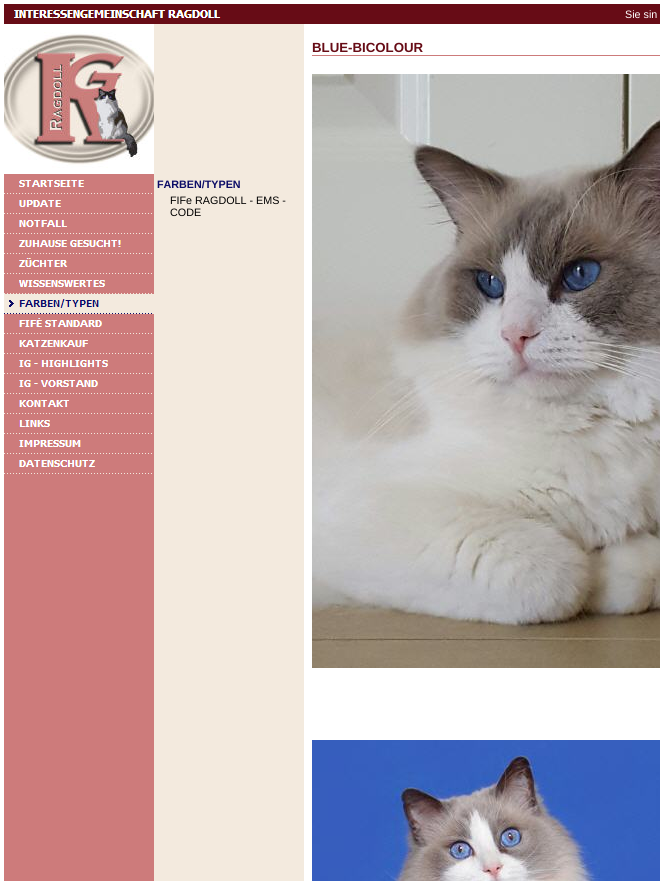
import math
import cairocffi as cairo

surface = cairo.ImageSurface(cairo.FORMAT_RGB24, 660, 881)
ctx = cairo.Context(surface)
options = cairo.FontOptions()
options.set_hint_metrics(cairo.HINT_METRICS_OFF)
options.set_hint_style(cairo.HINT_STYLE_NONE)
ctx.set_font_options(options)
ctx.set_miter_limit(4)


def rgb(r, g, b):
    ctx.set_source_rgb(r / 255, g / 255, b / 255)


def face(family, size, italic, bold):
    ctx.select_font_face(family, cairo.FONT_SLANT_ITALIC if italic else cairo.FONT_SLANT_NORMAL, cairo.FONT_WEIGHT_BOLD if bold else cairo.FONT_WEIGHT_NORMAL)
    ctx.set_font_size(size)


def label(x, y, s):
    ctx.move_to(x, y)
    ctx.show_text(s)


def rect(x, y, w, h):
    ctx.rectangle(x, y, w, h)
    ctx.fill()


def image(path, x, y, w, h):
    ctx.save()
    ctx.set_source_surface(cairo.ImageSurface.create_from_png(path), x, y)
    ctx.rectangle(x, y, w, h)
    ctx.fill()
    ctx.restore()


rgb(255, 255, 255)
ctx.paint()
image('image0.png', 4, 4, 300, 20)
rgb(103, 12, 22)
rect(304, 4, 356, 20)
face('Liberation Sans', 10.75, 0, 0)
rgb(255, 255, 255)
label(625, 18, 'Sie sin')
rgb(205, 123, 123)
rect(4, 174, 150, 707)
image('image1.png', 4, 24, 150, 150)
image('image2.png', 4, 180, 148, 14)
image('image3.png', 4, 200, 148, 14)
image('image4.png', 4, 220, 148, 14)
image('image5.png', 4, 240, 148, 14)
image('image6.png', 4, 258, 148, 16)
image('image7.png', 4, 280, 148, 14)
image('image8.png', 4, 294, 150, 20)
image('image9.png', 4, 318, 148, 16)
image('image10.png', 4, 340, 148, 14)
image('image11.png', 4, 360, 148, 14)
image('image12.png', 4, 380, 148, 14)
image('image13.png', 4, 400, 148, 14)
image('image14.png', 4, 420, 148, 14)
image('image15.png', 4, 440, 148, 14)
image('image16.png', 4, 460, 148, 14)
face('Liberation Sans', 13.25, 0, 1)
rgb(103, 12, 22)
label(312, 52, 'BLUE-BICOLOUR')
rgb(205, 123, 123)
rect(312, 55, 348, 1)
image('image17.png', 312, 74, 348, 594)
image('image18.png', 312, 740, 348, 141)
rgb(243, 234, 222)
rect(154, 24, 150, 857)
face('Liberation Sans', 10.75, 0, 1)
rgb(12, 12, 103)
label(157, 188, 'FARBEN/TYPEN')
face('Liberation Sans', 10.75, 0, 0)
rgb(0, 0, 0)
label(170, 204, 'FIFe RAGDOLL - EMS -')
label(170, 216, 'CODE')
surface.write_to_png('render.png')
